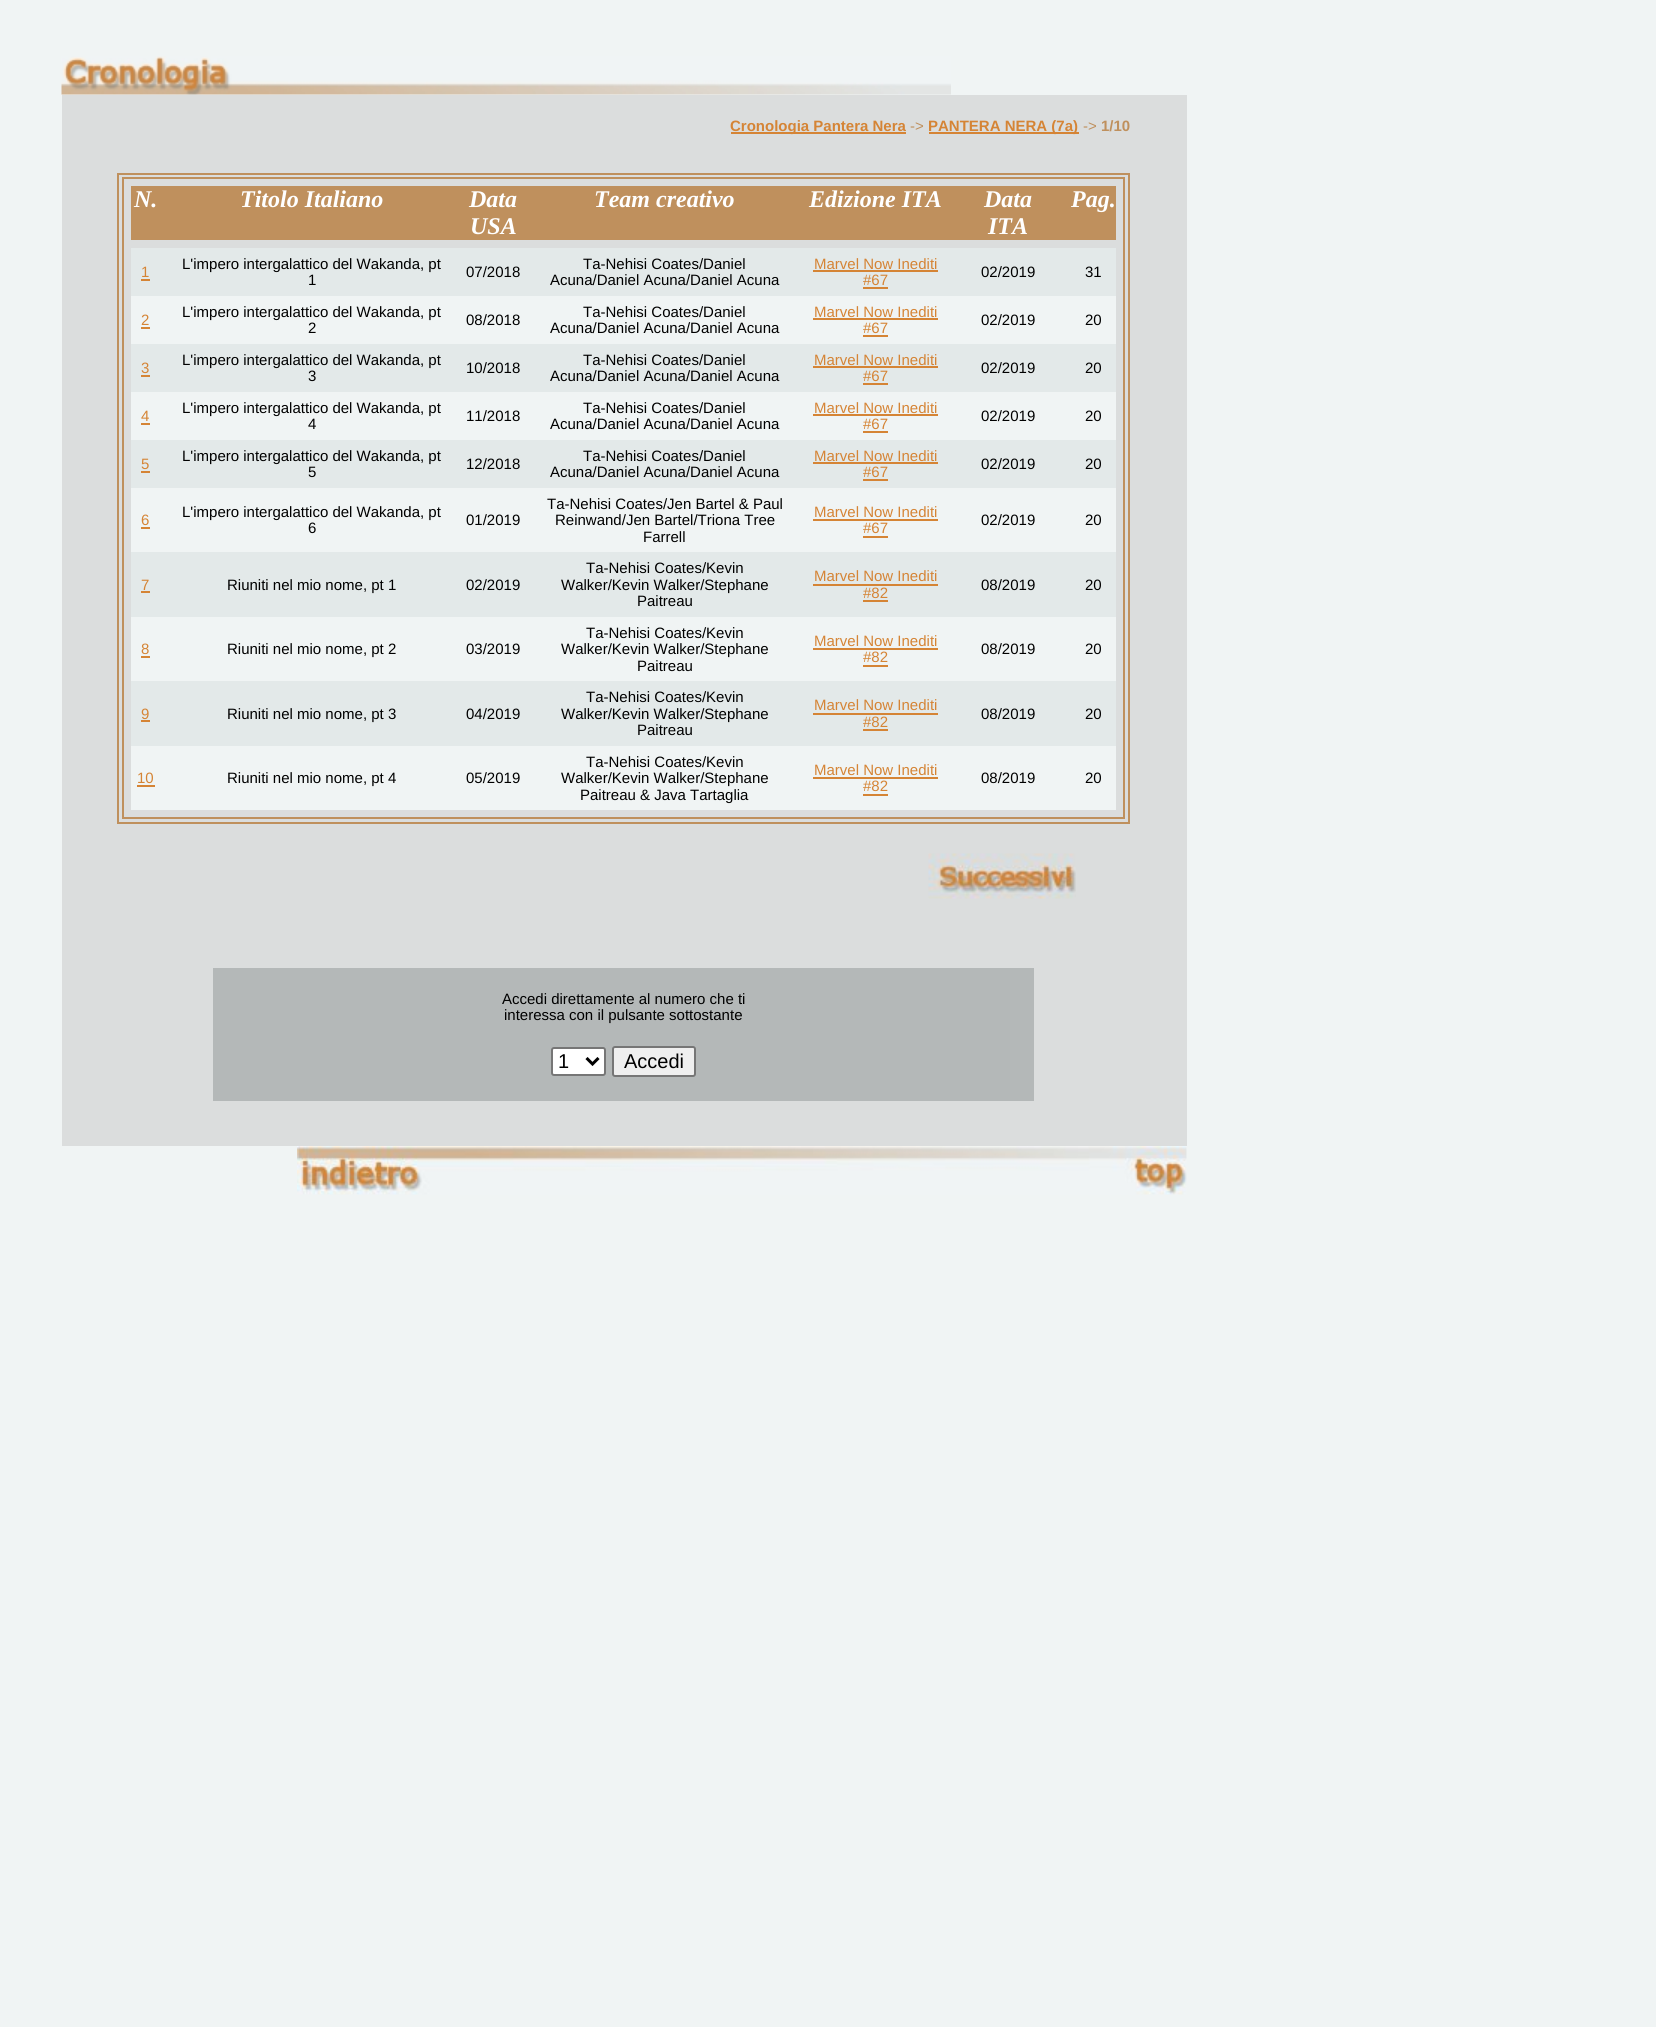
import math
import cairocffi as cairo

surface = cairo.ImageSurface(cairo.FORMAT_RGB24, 1656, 2027)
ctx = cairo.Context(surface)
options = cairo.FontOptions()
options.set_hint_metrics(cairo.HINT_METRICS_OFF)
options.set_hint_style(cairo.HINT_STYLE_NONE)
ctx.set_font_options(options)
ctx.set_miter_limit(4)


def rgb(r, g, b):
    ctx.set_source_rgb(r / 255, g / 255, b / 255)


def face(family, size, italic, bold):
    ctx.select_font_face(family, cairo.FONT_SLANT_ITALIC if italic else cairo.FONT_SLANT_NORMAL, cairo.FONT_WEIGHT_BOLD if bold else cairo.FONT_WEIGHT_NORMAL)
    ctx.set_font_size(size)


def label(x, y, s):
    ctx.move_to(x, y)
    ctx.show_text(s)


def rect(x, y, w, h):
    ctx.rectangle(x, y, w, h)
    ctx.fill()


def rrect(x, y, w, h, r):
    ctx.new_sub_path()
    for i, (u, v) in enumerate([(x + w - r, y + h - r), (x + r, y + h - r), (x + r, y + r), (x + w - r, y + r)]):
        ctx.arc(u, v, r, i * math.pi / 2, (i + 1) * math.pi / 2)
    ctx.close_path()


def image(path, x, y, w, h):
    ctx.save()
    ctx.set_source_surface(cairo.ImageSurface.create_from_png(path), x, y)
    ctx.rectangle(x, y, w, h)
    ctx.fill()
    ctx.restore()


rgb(240, 244, 244)
ctx.paint()
image('image0.png', 61, 56, 890, 39)
rgb(219, 221, 221)
rect(62, 95, 1125, 22)
rect(62, 117, 1125, 851)
rgb(213, 132, 53)
rect(731, 132, 175, 2)
face('Liberation Sans', 15, 0, 1)
label(730, 131, 'Cronologia Pantera Nera')
face('Liberation Sans', 15, 0, 0)
rgb(191, 144, 93)
label(910, 131, '->')
rgb(213, 132, 53)
rect(929, 132, 150, 2)
face('Liberation Sans', 15, 0, 1)
label(928, 131, 'PANTERA NERA (7a)')
face('Liberation Sans', 15, 0, 0)
rgb(191, 144, 93)
label(1083, 131, '->')
face('Liberation Sans', 15, 0, 1)
label(1101, 131, '1/10')
ctx.rectangle(118, 174, 1011, 649)
ctx.stroke()
ctx.rectangle(123, 178, 1001, 640)
ctx.stroke()
rect(131, 186, 985, 54)
face('Liberation Serif', 24, 1, 1)
rgb(255, 255, 255)
label(134, 207, 'N.')
label(240, 207, 'Titolo Italiano')
label(469, 207, 'Data')
label(470, 234, 'USA')
label(594, 207, 'Team creativo')
label(809, 207, 'Edizione ITA')
label(984, 207, 'Data')
label(988, 234, 'ITA')
label(1071, 207, 'Pag.')
rgb(227, 233, 233)
rect(131, 248, 985, 7)
rect(131, 255, 985, 41)
face('Liberation Sans', 15, 0, 0)
rgb(213, 132, 53)
label(141, 277, '1')
rect(141, 279, 9, 2)
rgb(0, 0, 0)
label(182, 269, 'L\'impero intergalattico del Wakanda, pt')
label(308, 285, '1')
label(466, 277, '07/2018')
label(583, 269, 'Ta-Nehisi Coates/Daniel')
label(550, 285, 'Acuna/Daniel Acuna/Daniel Acuna')
rgb(213, 132, 53)
label(814, 269, 'Marvel Now Inediti')
rect(813, 270, 125, 2)
label(863, 285, '#67')
rect(863, 287, 25, 2)
rgb(0, 0, 0)
label(981, 277, '02/2019')
label(1085, 277, '31')
rgb(240, 244, 244)
rect(131, 296, 985, 7)
rect(131, 303, 985, 41)
rgb(213, 132, 53)
label(141, 325, '2')
rect(141, 327, 9, 2)
rgb(0, 0, 0)
label(182, 317, 'L\'impero intergalattico del Wakanda, pt')
label(308, 333, '2')
label(466, 325, '08/2018')
label(583, 317, 'Ta-Nehisi Coates/Daniel')
label(550, 333, 'Acuna/Daniel Acuna/Daniel Acuna')
rgb(213, 132, 53)
label(814, 317, 'Marvel Now Inediti')
rect(813, 318, 125, 2)
label(863, 333, '#67')
rect(863, 335, 25, 2)
rgb(0, 0, 0)
label(981, 325, '02/2019')
label(1085, 325, '20')
rgb(227, 233, 233)
rect(131, 344, 985, 7)
rect(131, 351, 985, 41)
rgb(213, 132, 53)
label(141, 373, '3')
rect(141, 375, 9, 2)
rgb(0, 0, 0)
label(182, 365, 'L\'impero intergalattico del Wakanda, pt')
label(308, 381, '3')
label(466, 373, '10/2018')
label(583, 365, 'Ta-Nehisi Coates/Daniel')
label(550, 381, 'Acuna/Daniel Acuna/Daniel Acuna')
rgb(213, 132, 53)
label(814, 365, 'Marvel Now Inediti')
rect(813, 366, 125, 2)
label(863, 381, '#67')
rect(863, 383, 25, 2)
rgb(0, 0, 0)
label(981, 373, '02/2019')
label(1085, 373, '20')
rgb(240, 244, 244)
rect(131, 392, 985, 7)
rect(131, 399, 985, 41)
rgb(213, 132, 53)
label(141, 421, '4')
rect(141, 423, 9, 2)
rgb(0, 0, 0)
label(182, 413, 'L\'impero intergalattico del Wakanda, pt')
label(308, 429, '4')
label(466, 421, '11/2018')
label(583, 413, 'Ta-Nehisi Coates/Daniel')
label(550, 429, 'Acuna/Daniel Acuna/Daniel Acuna')
rgb(213, 132, 53)
label(814, 413, 'Marvel Now Inediti')
rect(813, 414, 125, 2)
label(863, 429, '#67')
rect(863, 431, 25, 2)
rgb(0, 0, 0)
label(981, 421, '02/2019')
label(1085, 421, '20')
rgb(227, 233, 233)
rect(131, 440, 985, 7)
rect(131, 447, 985, 41)
rgb(213, 132, 53)
label(141, 469, '5')
rect(141, 471, 9, 2)
rgb(0, 0, 0)
label(182, 461, 'L\'impero intergalattico del Wakanda, pt')
label(308, 477, '5')
label(466, 469, '12/2018')
label(583, 461, 'Ta-Nehisi Coates/Daniel')
label(550, 477, 'Acuna/Daniel Acuna/Daniel Acuna')
rgb(213, 132, 53)
label(814, 461, 'Marvel Now Inediti')
rect(813, 462, 125, 2)
label(863, 477, '#67')
rect(863, 479, 25, 2)
rgb(0, 0, 0)
label(981, 469, '02/2019')
label(1085, 469, '20')
rgb(240, 244, 244)
rect(131, 488, 985, 7)
rect(131, 495, 985, 57)
rgb(213, 132, 53)
label(141, 525, '6')
rect(141, 527, 9, 2)
rgb(0, 0, 0)
label(182, 517, 'L\'impero intergalattico del Wakanda, pt')
label(308, 533, '6')
label(466, 525, '01/2019')
label(547, 509, 'Ta-Nehisi Coates/Jen Bartel & Paul')
label(555, 525, 'Reinwand/Jen Bartel/Triona Tree')
label(643, 542, 'Farrell')
rgb(213, 132, 53)
label(814, 517, 'Marvel Now Inediti')
rect(813, 519, 125, 2)
label(863, 533, '#67')
rect(863, 536, 25, 2)
rgb(0, 0, 0)
label(981, 525, '02/2019')
label(1085, 525, '20')
rgb(227, 233, 233)
rect(131, 552, 985, 8)
rect(131, 560, 985, 57)
rgb(213, 132, 53)
label(141, 590, '7')
rect(141, 591, 9, 2)
rgb(0, 0, 0)
label(227, 590, 'Riuniti nel mio nome, pt 1')
label(466, 590, '02/2019')
label(586, 573, 'Ta-Nehisi Coates/Kevin')
label(561, 590, 'Walker/Kevin Walker/Stephane')
label(637, 606, 'Paitreau')
rgb(213, 132, 53)
label(814, 581, 'Marvel Now Inediti')
label(863, 598, '#82')
rect(813, 584, 125, 2)
rect(863, 600, 25, 2)
rgb(0, 0, 0)
label(981, 590, '08/2019')
label(1085, 590, '20')
rgb(240, 244, 244)
rect(131, 617, 985, 7)
rect(131, 624, 985, 57)
rgb(213, 132, 53)
label(141, 654, '8')
rect(141, 656, 9, 2)
rgb(0, 0, 0)
label(227, 654, 'Riuniti nel mio nome, pt 2')
label(466, 654, '03/2019')
label(586, 638, 'Ta-Nehisi Coates/Kevin')
label(561, 654, 'Walker/Kevin Walker/Stephane')
label(637, 671, 'Paitreau')
rgb(213, 132, 53)
label(814, 646, 'Marvel Now Inediti')
rect(813, 648, 125, 2)
label(863, 662, '#82')
rect(863, 665, 25, 2)
rgb(0, 0, 0)
label(981, 654, '08/2019')
label(1085, 654, '20')
rgb(227, 233, 233)
rect(131, 681, 985, 8)
rect(131, 689, 985, 57)
rgb(213, 132, 53)
label(141, 719, '9')
rect(141, 720, 9, 2)
rgb(0, 0, 0)
label(227, 719, 'Riuniti nel mio nome, pt 3')
label(466, 719, '04/2019')
label(586, 702, 'Ta-Nehisi Coates/Kevin')
label(561, 719, 'Walker/Kevin Walker/Stephane')
label(637, 735, 'Paitreau')
rgb(213, 132, 53)
label(814, 710, 'Marvel Now Inediti')
label(863, 727, '#82')
rect(813, 713, 125, 2)
rect(863, 729, 25, 2)
rgb(0, 0, 0)
label(981, 719, '08/2019')
label(1085, 719, '20')
rgb(240, 244, 244)
rect(131, 746, 985, 7)
rect(131, 753, 985, 57)
rgb(213, 132, 53)
label(137, 783, '10')
rect(137, 785, 18, 2)
rgb(0, 0, 0)
label(227, 783, 'Riuniti nel mio nome, pt 4')
label(466, 783, '05/2019')
label(586, 767, 'Ta-Nehisi Coates/Kevin')
label(561, 783, 'Walker/Kevin Walker/Stephane')
label(580, 800, 'Paitreau & Java Tartaglia')
rgb(213, 132, 53)
label(814, 775, 'Marvel Now Inediti')
rect(813, 777, 125, 2)
label(863, 791, '#82')
rect(863, 794, 25, 2)
rgb(0, 0, 0)
label(981, 783, '08/2019')
label(1085, 783, '20')
image('image1.png', 928, 853, 148, 46)
rgb(219, 221, 221)
rect(62, 968, 1125, 178)
rgb(180, 184, 184)
rect(213, 968, 821, 133)
rgb(0, 0, 0)
label(502, 1004, 'Accedi direttamente al numero che ti')
label(504, 1020, 'interessa con il pulsante sottostante')
rgb(255, 255, 255)
rrect(552, 1048, 53, 27, 2)
ctx.fill_preserve()
rgb(118, 118, 118)
ctx.stroke()
ctx.new_path()
ctx.move_to(586.5, 1058)
ctx.line_to(592.5, 1064)
ctx.line_to(598.5, 1058)
rgb(0, 0, 0)
ctx.set_line_width(3)
ctx.stroke()
face('Liberation Sans', 20, 0, 0)
label(558, 1068, '1')
rgb(239, 239, 239)
rrect(613, 1047, 82, 29, 2)
ctx.fill_preserve()
rgb(118, 118, 118)
ctx.set_line_width(2)
ctx.stroke()
rgb(0, 0, 0)
label(624, 1068, 'Accedi')
image('image2.png', 297, 1146, 890, 49)
surface.write_to_png('render.png')
